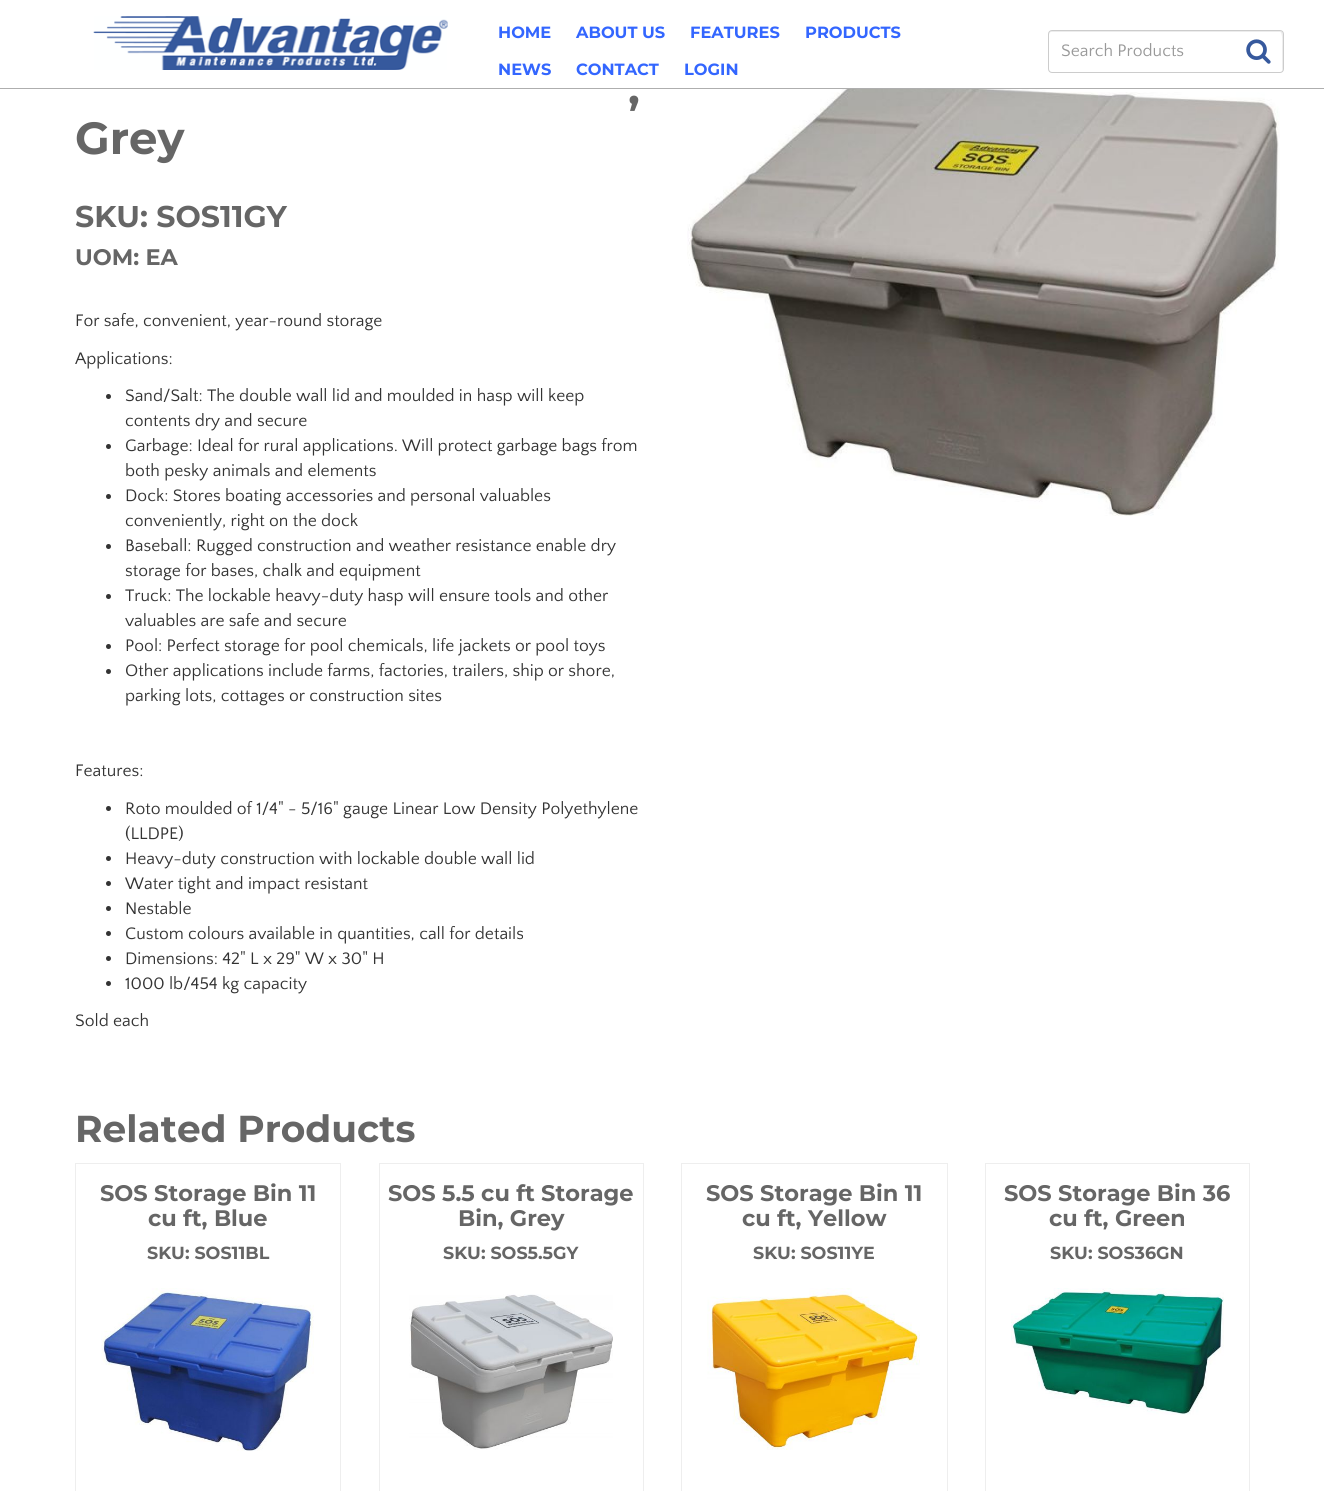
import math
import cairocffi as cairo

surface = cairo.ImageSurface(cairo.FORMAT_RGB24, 1324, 1491)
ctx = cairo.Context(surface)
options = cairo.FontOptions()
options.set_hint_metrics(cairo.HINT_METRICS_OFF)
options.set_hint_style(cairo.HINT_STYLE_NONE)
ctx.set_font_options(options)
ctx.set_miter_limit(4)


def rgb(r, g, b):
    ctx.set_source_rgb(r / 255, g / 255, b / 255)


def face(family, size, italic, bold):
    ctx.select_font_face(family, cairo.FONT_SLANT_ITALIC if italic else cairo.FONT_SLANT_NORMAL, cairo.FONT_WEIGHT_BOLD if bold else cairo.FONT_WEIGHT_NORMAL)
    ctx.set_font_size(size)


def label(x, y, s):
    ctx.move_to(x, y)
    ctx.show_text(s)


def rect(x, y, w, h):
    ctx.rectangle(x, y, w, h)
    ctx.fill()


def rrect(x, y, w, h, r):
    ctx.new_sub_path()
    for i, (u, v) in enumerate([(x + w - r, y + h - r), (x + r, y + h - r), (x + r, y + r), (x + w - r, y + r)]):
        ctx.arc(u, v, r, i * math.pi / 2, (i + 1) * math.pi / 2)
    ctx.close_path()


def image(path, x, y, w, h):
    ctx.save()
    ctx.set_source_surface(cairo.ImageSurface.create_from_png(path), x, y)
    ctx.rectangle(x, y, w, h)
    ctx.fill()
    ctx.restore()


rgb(255, 255, 255)
ctx.paint()
rgb(174, 174, 174)
rect(0, 88, 1324, 1)
image('image0.png', 93, 16, 355, 54)
face('Montserrat', 16.25, 0, 1)
rgb(51, 102, 255)
label(498, 38, 'HOME')
label(576, 38, 'ABOUT US')
label(690, 38, 'FEATURES')
label(805, 38, 'PRODUCTS')
label(498, 75, 'NEWS')
label(576, 75, 'CONTACT')
label(684, 75, 'LOGIN')
rgb(236, 236, 236)
ctx.new_path()
ctx.move_to(1051, 32)
ctx.line_to(1280, 32)
ctx.curve_to(1283, 32, 1282, 46, 1282, 47)
ctx.line_to(1282, 71)
ctx.curve_to(1283, 70, 1283, 69, 1283, 68)
ctx.line_to(1283, 34)
ctx.curve_to(1283, 32, 1282, 31, 1280, 31)
ctx.line_to(1052, 31)
ctx.curve_to(1050, 31, 1049, 32, 1049, 34)
ctx.line_to(1049, 35)
ctx.curve_to(1049, 34, 1050, 32, 1051, 32)
ctx.close_path()
ctx.fill()
rrect(1048.5, 30.5, 235, 42, 3.5)
rgb(204, 204, 204)
ctx.set_line_width(1)
ctx.stroke()
face('Quattrocento Sans', 17.5, 0, 0)
rgb(153, 153, 153)
label(1061, 56, 'Search Products')
image('image1.png', 1246, 39, 25, 25)
face('Montserrat', 45, 0, 1)
rgb(102, 102, 102)
label(628, 104, ',')
label(75, 154, 'Grey')
face('Montserrat', 30, 0, 1)
label(75, 227, 'SKU: SOS11GY')
face('Montserrat', 22.5, 0, 1)
label(75, 265, 'UOM: EA')
face('Quattrocento Sans', 17.5, 0, 0)
rgb(51, 51, 51)
label(75, 326, 'For safe, convenient, year-round storage')
label(75, 364, 'Applications:')
ctx.new_path()
ctx.arc(108.5, 396.5, 2.5, 0, 2 * math.pi)
ctx.fill()
label(125, 401, 'Sand/Salt: The double wall lid and moulded in hasp will keep')
label(125, 426, 'contents dry and secure')
ctx.new_path()
ctx.arc(108.5, 446.5, 2.5, 0, 2 * math.pi)
ctx.fill()
label(125, 451, 'Garbage: Ideal for rural applications. Will protect garbage bags from')
label(125, 476, 'both pesky animals and elements')
ctx.new_path()
ctx.arc(108.5, 496.5, 2.5, 0, 2 * math.pi)
ctx.fill()
label(125, 501, 'Dock: Stores boating accessories and personal valuables')
label(125, 526, 'conveniently, right on the dock')
ctx.new_path()
ctx.arc(108.5, 546.5, 2.5, 0, 2 * math.pi)
ctx.fill()
label(125, 551, 'Baseball: Rugged construction and weather resistance enable dry')
label(125, 576, 'storage for bases, chalk and equipment')
ctx.new_path()
ctx.arc(108.5, 596.5, 2.5, 0, 2 * math.pi)
ctx.fill()
label(125, 601, 'Truck: The lockable heavy-duty hasp will ensure tools and other')
label(125, 626, 'valuables are safe and secure')
ctx.new_path()
ctx.arc(108.5, 646.5, 2.5, 0, 2 * math.pi)
ctx.fill()
label(125, 651, 'Pool: Perfect storage for pool chemicals, life jackets or pool toys')
ctx.new_path()
ctx.arc(108.5, 671.5, 2.5, 0, 2 * math.pi)
ctx.fill()
label(125, 676, 'Other applications include farms, factories, trailers, ship or shore,')
label(125, 701, 'parking lots, cottages or construction sites')
label(75, 776, 'Features:')
ctx.new_path()
ctx.arc(108.5, 808.5, 2.5, 0, 2 * math.pi)
ctx.fill()
label(125, 814, 'Roto moulded of 1/4" - 5/16" gauge Linear Low Density Polyethylene')
label(125, 839, '(LLDPE)')
ctx.new_path()
ctx.arc(108.5, 858.5, 2.5, 0, 2 * math.pi)
ctx.fill()
label(125, 864, 'Heavy-duty construction with lockable double wall lid')
ctx.new_path()
ctx.arc(108.5, 883.5, 2.5, 0, 2 * math.pi)
ctx.fill()
label(125, 889, 'Water tight and impact resistant')
ctx.new_path()
ctx.arc(108.5, 908.5, 2.5, 0, 2 * math.pi)
ctx.fill()
label(125, 914, 'Nestable')
ctx.new_path()
ctx.arc(108.5, 933.5, 2.5, 0, 2 * math.pi)
ctx.fill()
label(125, 939, 'Custom colours available in quantities, call for details')
ctx.new_path()
ctx.arc(108.5, 958.5, 2.5, 0, 2 * math.pi)
ctx.fill()
label(125, 964, 'Dimensions: 42" L x 29" W x 30" H')
ctx.new_path()
ctx.arc(108.5, 983.5, 2.5, 0, 2 * math.pi)
ctx.fill()
label(125, 989, '1000 lb/454 kg capacity')
label(75, 1026, 'Sold each')
image('image2.png', 687, 89, 593, 427)
face('Montserrat', 37.5, 0, 1)
rgb(102, 102, 102)
label(75, 1142, 'Related Products')
ctx.rectangle(75.5, 1163.5, 265, 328)
rgb(238, 238, 238)
ctx.stroke()
face('Montserrat', 22.5, 0, 1)
rgb(102, 102, 102)
label(100, 1201, 'SOS Storage Bin 11')
label(148, 1226, 'cu ft, Blue')
face('Montserrat', 17.5, 0, 1)
label(147, 1259, 'SKU: SOS11BL')
image('image3.png', 101, 1288, 213, 163)
ctx.rectangle(379.5, 1163.5, 264, 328)
rgb(238, 238, 238)
ctx.stroke()
face('Montserrat', 22.5, 0, 1)
rgb(102, 102, 102)
label(388, 1201, 'SOS 5.5 cu ft Storage')
label(458, 1226, 'Bin, Grey')
face('Montserrat', 17.5, 0, 1)
label(443, 1259, 'SKU: SOS5.5GY')
image('image4.png', 409, 1294, 204, 156)
ctx.rectangle(681.5, 1163.5, 266, 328)
rgb(238, 238, 238)
ctx.stroke()
face('Montserrat', 22.5, 0, 1)
rgb(102, 102, 102)
label(706, 1201, 'SOS Storage Bin 11')
label(742, 1226, 'cu ft, Yellow')
face('Montserrat', 17.5, 0, 1)
label(753, 1259, 'SKU: SOS11YE')
image('image5.png', 707, 1288, 213, 162)
ctx.rectangle(985.5, 1163.5, 264, 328)
rgb(238, 238, 238)
ctx.stroke()
face('Montserrat', 22.5, 0, 1)
rgb(102, 102, 102)
label(1004, 1201, 'SOS Storage Bin 36')
label(1049, 1226, 'cu ft, Green')
face('Montserrat', 17.5, 0, 1)
label(1050, 1259, 'SKU: SOS36GN')
image('image6.png', 1011, 1288, 213, 127)
surface.write_to_png('render.png')
